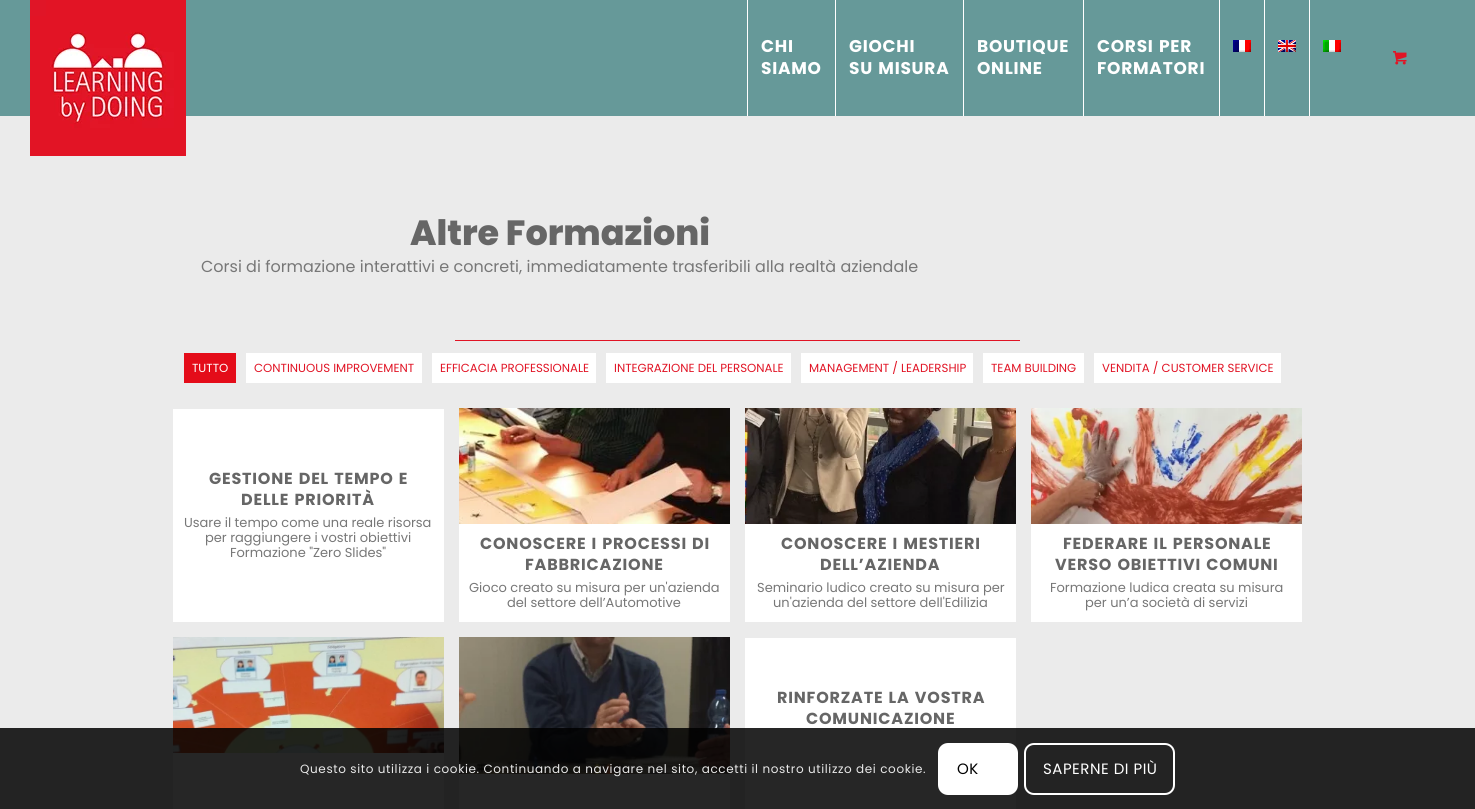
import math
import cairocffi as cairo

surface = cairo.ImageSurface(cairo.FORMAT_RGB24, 1475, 809)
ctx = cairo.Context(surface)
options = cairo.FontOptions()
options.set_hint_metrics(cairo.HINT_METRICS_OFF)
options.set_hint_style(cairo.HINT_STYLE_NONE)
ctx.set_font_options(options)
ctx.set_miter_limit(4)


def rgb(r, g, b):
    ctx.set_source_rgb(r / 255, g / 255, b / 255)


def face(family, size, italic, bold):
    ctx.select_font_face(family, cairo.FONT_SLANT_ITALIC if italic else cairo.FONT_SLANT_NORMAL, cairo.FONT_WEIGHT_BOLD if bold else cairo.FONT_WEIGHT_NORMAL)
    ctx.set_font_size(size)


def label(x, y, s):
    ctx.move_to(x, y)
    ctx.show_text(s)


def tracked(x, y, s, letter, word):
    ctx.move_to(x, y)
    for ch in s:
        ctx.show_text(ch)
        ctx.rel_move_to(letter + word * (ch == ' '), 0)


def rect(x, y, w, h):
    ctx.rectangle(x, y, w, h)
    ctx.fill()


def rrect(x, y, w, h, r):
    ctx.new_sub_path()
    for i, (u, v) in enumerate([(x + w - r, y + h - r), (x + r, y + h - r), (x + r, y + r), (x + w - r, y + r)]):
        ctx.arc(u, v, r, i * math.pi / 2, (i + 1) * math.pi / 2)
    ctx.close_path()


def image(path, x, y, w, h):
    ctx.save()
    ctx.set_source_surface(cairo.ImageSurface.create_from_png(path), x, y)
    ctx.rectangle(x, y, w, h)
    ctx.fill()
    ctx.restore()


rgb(235, 235, 235)
ctx.paint()
rgb(102, 153, 153)
rect(0, 0, 1475, 116)
image('image0.png', 30, 0, 156, 156)
rgb(255, 255, 255)
rect(747, 0, 1, 116)
face('Poppins', 17, 0, 1)
tracked(761, 52, 'CHI', 0.75, 0)
tracked(761, 74, 'SIAMO', 0.75, 0)
rect(835, 0, 1, 116)
tracked(849, 52, 'GIOCHI', 0.75, 0)
tracked(849, 74, 'SU MISURA', 0.75, 1)
rect(963, 0, 1, 116)
tracked(977, 52, 'BOUTIQUE', 0.75, 0)
tracked(977, 74, 'ONLINE', 0.75, 0)
rect(1083, 0, 1, 116)
tracked(1097, 52, 'CORSI PER', 0.75, 1)
tracked(1097, 74, 'FORMATORI', 0.75, 0)
rect(1219, 0, 1, 116)
image('image1.png', 1233, 40, 18, 12)
rect(1264, 0, 1, 116)
image('image2.png', 1278, 40, 18, 12)
rect(1309, 0, 1, 116)
image('image3.png', 1323, 40, 18, 12)
image('image4.png', 1393, 51, 14, 14)
face('Poppins ExtraBold', 35, 0, 0)
rgb(102, 102, 102)
label(410, 245, 'Altre Formazioni')
face('Poppins', 16, 0, 0)
rgb(119, 119, 119)
label(201, 272, 'Corsi di formazione interattivi e concreti, immediatamente trasferibili alla realtà aziendale')
rgb(225, 20, 37)
rect(455, 340, 565, 1)
rgb(228, 12, 25)
rect(184, 353, 52, 30)
face('Poppins', 11.75, 0, 0)
rgb(255, 255, 255)
label(192, 372, 'TUTTO')
rect(246, 353, 176, 30)
rgb(225, 20, 37)
label(254, 372, 'CONTINUOUS IMPROVEMENT')
rgb(255, 255, 255)
rect(432, 353, 164, 30)
rgb(225, 20, 37)
label(440, 372, 'EFFICACIA PROFESSIONALE')
rgb(255, 255, 255)
rect(606, 353, 185, 30)
rgb(225, 20, 37)
label(614, 372, 'INTEGRAZIONE DEL PERSONALE')
rgb(255, 255, 255)
rect(801, 353, 172, 30)
rgb(225, 20, 37)
label(809, 372, 'MANAGEMENT / LEADERSHIP')
rgb(255, 255, 255)
rect(983, 353, 101, 30)
rgb(225, 20, 37)
label(991, 372, 'TEAM BUILDING')
rgb(255, 255, 255)
rect(1094, 353, 187, 30)
rgb(225, 20, 37)
label(1102, 372, 'VENDITA / CUSTOMER SERVICE')
rgb(255, 255, 255)
rect(173, 409, 271, 213)
face('Poppins', 16, 0, 1)
rgb(102, 102, 102)
tracked(209, 484, 'GESTIONE DEL TEMPO E', 0.8, 1)
tracked(241, 505, 'DELLE PRIORITÀ', 0.8, 1)
face('Poppins', 13, 0, 0)
rgb(119, 119, 119)
label(184, 527, 'Usare il tempo come una reale risorsa')
label(205, 542, 'per raggiungere i vostri obiettivi')
label(230, 557, 'Formazione "Zero Slides"')
image('image5.png', 459, 408, 271, 116)
rgb(255, 255, 255)
rect(459, 524, 271, 98)
face('Poppins', 16, 0, 1)
rgb(102, 102, 102)
tracked(480, 549, 'CONOSCERE I PROCESSI DI', 0.8, 1)
tracked(525, 570, 'FABBRICAZIONE', 0.8, 0)
face('Poppins', 13, 0, 0)
rgb(119, 119, 119)
label(469, 592, 'Gioco creato su misura per un\'azienda')
label(507, 607, 'del settore dell’Automotive')
image('image6.png', 745, 408, 271, 116)
rgb(255, 255, 255)
rect(745, 524, 271, 98)
face('Poppins', 16, 0, 1)
rgb(102, 102, 102)
tracked(781, 549, 'CONOSCERE I MESTIERI', 0.8, 1)
tracked(820, 570, 'DELL’AZIENDA', 0.8, 0)
face('Poppins', 13, 0, 0)
rgb(119, 119, 119)
label(757, 592, 'Seminario ludico creato su misura per')
label(773, 607, 'un\'azienda del settore dell\'Edilizia')
image('image7.png', 1031, 408, 271, 116)
rgb(255, 255, 255)
rect(1031, 524, 271, 98)
face('Poppins', 16, 0, 1)
rgb(102, 102, 102)
tracked(1063, 549, 'FEDERARE IL PERSONALE', 0.8, 1)
tracked(1055, 570, 'VERSO OBIETTIVI COMUNI', 0.8, 1)
face('Poppins', 13, 0, 0)
rgb(119, 119, 119)
label(1050, 592, 'Formazione ludica creata su misura')
label(1085, 607, 'per un’a società di servizi')
image('image8.png', 173, 637, 271, 116)
rgb(255, 255, 255)
rect(173, 753, 271, 56)
image('image9.png', 459, 637, 271, 137)
rect(459, 774, 271, 35)
rect(745, 638, 271, 171)
face('Poppins', 16, 0, 1)
rgb(102, 102, 102)
tracked(777, 703, 'RINFORZATE LA VOSTRA', 0.8, 1)
tracked(806, 724, 'COMUNICAZIONE', 0.8, 0)
ctx.set_source_rgba(0, 0, 0, 0.85)
rect(0, 728, 1475, 81)
face('Poppins', 12, 0, 0)
rgb(232, 232, 232)
tracked(300, 773, 'Questo sito utilizza i cookie. Continuando a navigare nel sito, accetti il nostro utilizzo dei cookie.', 0.6, 0)
rgb(255, 255, 255)
rrect(938, 743, 80, 52, 10)
ctx.fill()
face('Poppins', 15, 0, 0)
rgb(0, 0, 0)
tracked(957, 774, 'OK', 0.5, 0)
rrect(1025, 744, 149, 50, 9)
rgb(255, 255, 255)
ctx.stroke()
tracked(1043, 774, 'SAPERNE DI PIÙ', 0.5, 0)
surface.write_to_png('render.png')
